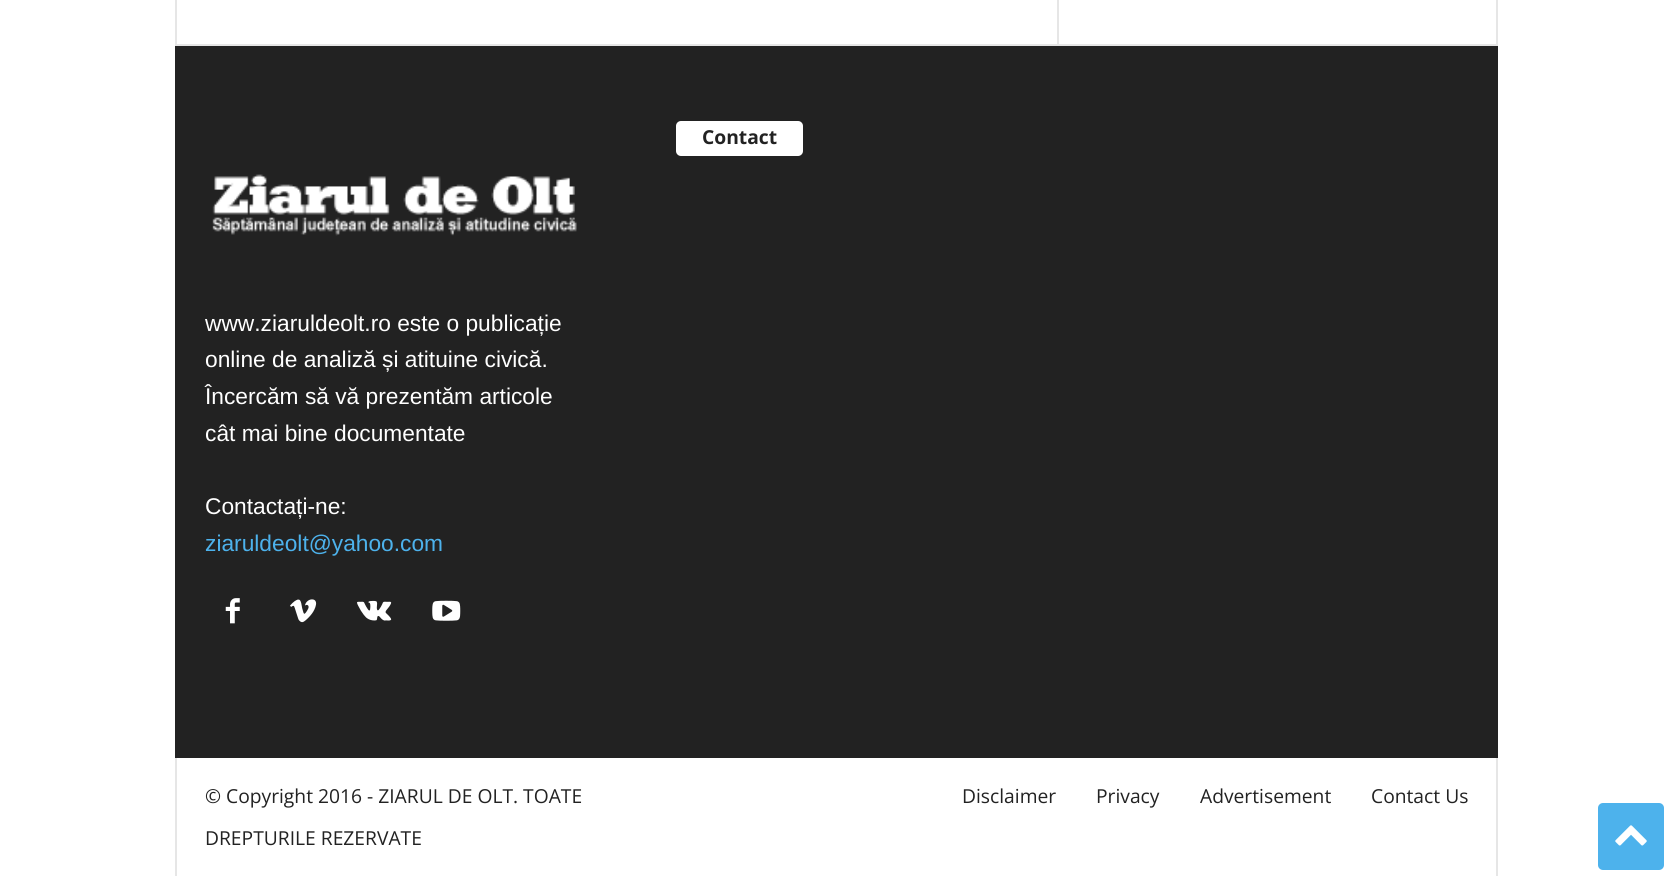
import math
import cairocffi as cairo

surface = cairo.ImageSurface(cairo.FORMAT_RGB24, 1673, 876)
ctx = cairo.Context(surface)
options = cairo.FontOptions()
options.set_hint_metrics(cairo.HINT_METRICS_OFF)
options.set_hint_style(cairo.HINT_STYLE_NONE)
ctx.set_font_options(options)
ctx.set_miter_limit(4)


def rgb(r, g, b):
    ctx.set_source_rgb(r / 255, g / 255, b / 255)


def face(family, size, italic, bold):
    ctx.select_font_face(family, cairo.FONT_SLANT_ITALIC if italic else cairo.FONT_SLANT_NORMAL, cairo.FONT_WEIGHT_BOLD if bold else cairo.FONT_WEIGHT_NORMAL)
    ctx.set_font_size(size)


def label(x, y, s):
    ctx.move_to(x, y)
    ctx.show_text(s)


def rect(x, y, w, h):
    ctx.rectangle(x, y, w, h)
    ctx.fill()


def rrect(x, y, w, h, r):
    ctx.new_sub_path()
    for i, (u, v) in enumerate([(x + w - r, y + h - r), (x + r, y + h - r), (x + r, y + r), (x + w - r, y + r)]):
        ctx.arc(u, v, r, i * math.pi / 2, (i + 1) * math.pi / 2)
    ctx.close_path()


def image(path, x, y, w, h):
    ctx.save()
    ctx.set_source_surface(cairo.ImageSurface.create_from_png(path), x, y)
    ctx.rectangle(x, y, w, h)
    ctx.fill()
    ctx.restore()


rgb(255, 255, 255)
ctx.paint()
rgb(230, 230, 230)
rect(175, 44, 1323, 2)
rect(175, 0, 2, 44)
rect(1057, 0, 2, 44)
rect(1496, 0, 2, 44)
rgb(34, 34, 34)
rect(175, 46, 1323, 712)
rgb(255, 255, 255)
rrect(676, 121, 127, 35, 5)
ctx.fill()
face('Open Sans', 19.25, 0, 1)
rgb(34, 34, 34)
label(702, 144, 'Contact')
image('image0.png', 212, 174, 365, 62)
face('Liberation Sans', 22.75, 0, 0)
rgb(255, 255, 255)
label(205, 331, 'www.ziaruldeolt.ro este o publicație')
label(205, 367, 'online de analiză și atituine civică.')
label(205, 404, 'Încercăm să vă prezentăm articole')
label(205, 441, 'cât mai bine documentate')
label(205, 514, 'Contactați-ne:')
rgb(77, 178, 236)
label(205, 551, 'ziaruldeolt@yahoo.com')
image('image1.png', 225, 598, 15, 26)
image('image2.png', 290, 599, 27, 24)
image('image3.png', 357, 600, 35, 21)
image('image4.png', 432, 600, 29, 21)
rgb(230, 230, 230)
rect(175, 758, 2, 118)
face('Open Sans', 19.25, 0, 0)
rgb(34, 34, 34)
label(205, 803, '© Copyright 2016 - ZIARUL DE OLT. TOATE')
label(205, 845, 'DREPTURILE REZERVATE')
label(962, 803, 'Disclaimer')
label(1096, 803, 'Privacy')
label(1200, 803, 'Advertisement')
label(1371, 803, 'Contact Us')
rgb(230, 230, 230)
rect(1496, 758, 2, 118)
rgb(77, 178, 236)
rrect(1598, 803, 66, 67, 5)
ctx.fill()
image('image5.png', 1615, 825, 32, 21)
surface.write_to_png('render.png')
